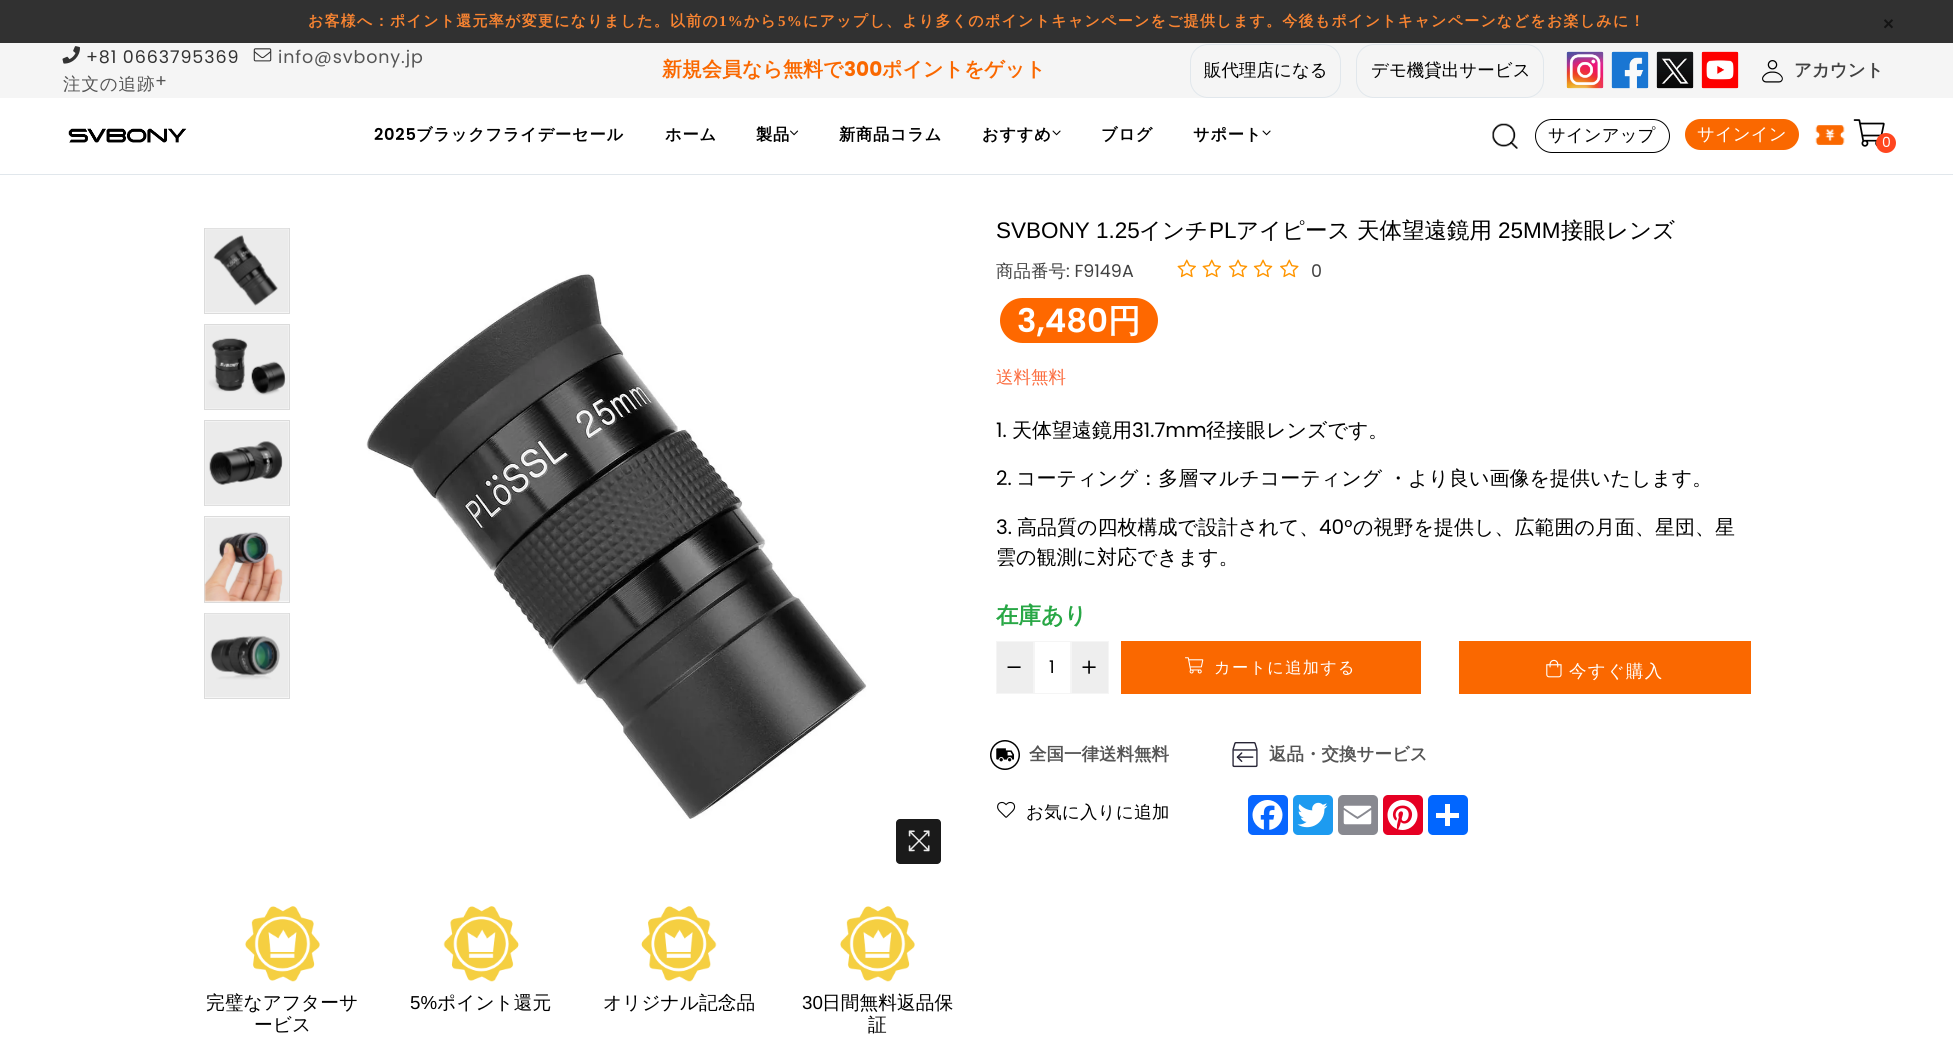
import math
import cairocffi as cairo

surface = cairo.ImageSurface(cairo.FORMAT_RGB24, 1953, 1062)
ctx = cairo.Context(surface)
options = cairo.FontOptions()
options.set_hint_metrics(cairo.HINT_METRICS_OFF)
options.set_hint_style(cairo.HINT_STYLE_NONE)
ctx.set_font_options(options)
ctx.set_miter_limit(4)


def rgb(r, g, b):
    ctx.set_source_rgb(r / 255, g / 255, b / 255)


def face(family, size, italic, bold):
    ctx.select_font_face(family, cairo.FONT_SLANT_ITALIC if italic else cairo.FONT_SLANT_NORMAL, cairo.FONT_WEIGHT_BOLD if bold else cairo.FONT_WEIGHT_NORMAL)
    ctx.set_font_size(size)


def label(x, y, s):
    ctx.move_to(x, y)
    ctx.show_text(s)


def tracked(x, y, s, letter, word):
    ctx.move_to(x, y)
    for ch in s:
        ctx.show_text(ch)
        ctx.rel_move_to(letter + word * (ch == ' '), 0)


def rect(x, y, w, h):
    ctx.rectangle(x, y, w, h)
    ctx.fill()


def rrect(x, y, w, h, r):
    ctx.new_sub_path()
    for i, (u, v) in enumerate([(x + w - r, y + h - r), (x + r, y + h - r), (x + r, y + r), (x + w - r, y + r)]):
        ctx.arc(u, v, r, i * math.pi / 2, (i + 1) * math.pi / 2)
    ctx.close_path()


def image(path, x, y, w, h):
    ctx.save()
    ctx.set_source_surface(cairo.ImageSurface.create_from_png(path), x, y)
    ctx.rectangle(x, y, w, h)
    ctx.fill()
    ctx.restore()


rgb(255, 255, 255)
ctx.paint()
rgb(49, 49, 49)
rect(0, 0, 1953, 43)
face('WenQuanYi Zen Hei', 15, 0, 1)
rgb(249, 132, 49)
tracked(308, 26, 'お客様へ：ポイント還元率が変更になりました。以前の', 1.25, 0)
face('Liberation Serif', 15, 0, 1)
tracked(719, 26, '1%', 1.25, 0)
face('WenQuanYi Zen Hei', 15, 0, 1)
tracked(744, 26, 'から', 1.25, 0)
face('Liberation Serif', 15, 0, 1)
tracked(778, 26, '5%', 1.25, 0)
face('WenQuanYi Zen Hei', 15, 0, 1)
tracked(803, 26, 'にアップし、より多くのポイントキャンペーンをご提供します。今後もポイントキャンペーンなどをお楽しみに！', 1.25, 0)
face('Liberation Sans', 18.75, 0, 1)
rgb(20, 20, 20)
label(1883, 30, '×')
rgb(245, 245, 245)
rect(0, 43, 1953, 55)
image('image0.png', 62, 46, 18, 18)
face('Poppins', 17.5, 0, 0)
rgb(51, 51, 51)
tracked(86, 63, '+81 0663795369', 0.9, 0)
image('image1.png', 253, 48, 19, 14)
rgb(85, 85, 85)
tracked(278, 63, 'info@svbony.jp', 0.9, 0)
face('WenQuanYi Zen Hei Medium', 17.5, 0, 0)
tracked(63, 90, '注文の追跡', 0.9, 0)
face('Poppins', 17.5, 0, 0)
tracked(155, 87, '+', 0.9, 0)
face('WenQuanYi Zen Hei', 20, 0, 1)
rgb(250, 104, 0)
label(662, 76, '新規会員なら無料で')
face('Poppins', 20, 0, 1)
label(844, 76, '300')
face('WenQuanYi Zen Hei', 20, 0, 1)
label(882, 76, 'ポイントをゲット')
rrect(1190.5, 44.5, 150, 53, 17.5)
rgb(225, 231, 236)
ctx.set_line_width(1)
ctx.stroke()
face('WenQuanYi Zen Hei Medium', 17.5, 0, 0)
rgb(0, 0, 0)
label(1204, 76, '販代理店になる')
rrect(1356.5, 44.5, 187, 53, 17.5)
rgb(225, 231, 236)
ctx.stroke()
rgb(0, 0, 0)
label(1371, 76, 'デモ機貸出サービス')
image('image2.png', 1566, 51, 38, 38)
image('image3.png', 1611, 51, 38, 38)
image('image4.png', 1656, 51, 38, 38)
image('image5.png', 1701, 51, 38, 38)
image('image6.png', 1762, 60, 21, 23)
face('WenQuanYi Zen Hei', 17.5, 0, 1)
rgb(66, 66, 66)
label(1794, 76, 'アカウント')
rgb(225, 231, 236)
rect(0, 174, 1953, 1)
image('image7.png', 68, 128, 119, 15)
face('Poppins SemiBold', 16.25, 0, 0)
rgb(0, 0, 0)
tracked(374, 140, '2025', 0.75, 0)
face('WenQuanYi Zen Hei', 16.25, 0, 1)
tracked(416, 140, 'ブラックフライデーセール', 0.75, 0)
tracked(665, 140, 'ホーム', 0.75, 0)
tracked(756, 140, '製品', 0.75, 0)
image('image8.png', 790, 130, 9, 6)
tracked(839, 140, '新商品コラム', 0.75, 0)
tracked(982, 140, 'おすすめ', 0.75, 0)
image('image9.png', 1052, 130, 9, 6)
tracked(1101, 140, 'ブログ', 0.75, 0)
tracked(1193, 140, 'サポート', 0.75, 0)
image('image9.png', 1262, 130, 9, 6)
image('image10.png', 1492, 123, 26, 26)
rrect(1535.5, 119.5, 134, 33, 16.5)
ctx.stroke()
face('WenQuanYi Zen Hei Medium', 17.5, 0, 0)
label(1548, 141, 'サインアップ')
rgb(250, 104, 0)
rrect(1685, 119, 114, 31, 15.5)
ctx.fill()
rgb(255, 255, 255)
label(1697, 140, 'サインイン')
image('image11.png', 1815, 125, 30, 20)
image('image12.png', 1853, 119, 32, 28)
rgb(255, 70, 31)
ctx.arc(1886, 143, 10, 0, 2 * math.pi)
ctx.fill()
face('Poppins', 14, 0, 0)
rgb(255, 255, 255)
label(1882, 147, '0')
face('Liberation Sans', 22.5, 0, 0)
rgb(0, 0, 0)
label(996, 238, 'SVBONY 1.25')
face('WenQuanYi Zen Hei Medium', 22.5, 0, 0)
label(1139, 238, 'インチ')
face('Liberation Sans', 22.5, 0, 0)
label(1209, 238, 'PL')
face('WenQuanYi Zen Hei Medium', 22.5, 0, 0)
label(1236, 238, 'アイピース')
label(1357, 238, '天体望遠鏡用')
face('Liberation Sans', 22.5, 0, 0)
label(1498, 238, '25MM')
face('WenQuanYi Zen Hei Medium', 22.5, 0, 0)
label(1561, 238, '接眼レンズ')
face('WenQuanYi Zen Hei Medium', 17.5, 0, 0)
rgb(66, 66, 66)
label(996, 277, '商品番号')
face('Poppins', 17.5, 0, 0)
label(1066, 277, ': F9149A')
image('image13.png', 1177, 259, 19, 19)
image('image13.png', 1202, 259, 19, 19)
image('image14.png', 1228, 259, 20, 19)
image('image14.png', 1253, 259, 20, 19)
image('image15.png', 1280, 259, 19, 19)
label(1311, 277, '0')
rgb(254, 104, 0)
rrect(1000, 298, 158, 45, 22.5)
ctx.fill()
face('Poppins SemiBold', 32.5, 0, 0)
rgb(255, 255, 255)
label(1017, 332, '3,480')
face('WenQuanYi Zen Hei', 32.5, 0, 1)
label(1108, 332, '円')
face('WenQuanYi Zen Hei Medium', 17.5, 0, 0)
rgb(251, 108, 62)
label(996, 383, '送料無料')
face('Poppins', 20, 0, 0)
rgb(0, 0, 0)
label(996, 437, '1.')
face('WenQuanYi Zen Hei Medium', 20, 0, 0)
label(1012, 437, '天体望遠鏡用')
face('Poppins', 20, 0, 0)
label(1132, 437, '31.7mm')
face('WenQuanYi Zen Hei Medium', 20, 0, 0)
label(1206, 437, '径接眼レンズです。')
face('Poppins', 20, 0, 0)
label(996, 485, '2.')
face('WenQuanYi Zen Hei Medium', 20, 0, 0)
label(1016, 485, 'コーティング：多層マルチコーティング ・より良い画像を提供いたします。')
face('Poppins', 20, 0, 0)
label(996, 534, '3.')
face('WenQuanYi Zen Hei Medium', 20, 0, 0)
label(1017, 534, '高品質の四枚構成で設計されて、')
face('Poppins', 20, 0, 0)
label(1319, 534, '40°')
face('WenQuanYi Zen Hei Medium', 20, 0, 0)
label(1353, 534, 'の視野を提供し、広範囲の月面、星団、星')
label(996, 564, '雲の観測に対応できます。')
face('WenQuanYi Zen Hei', 22.5, 0, 1)
rgb(40, 167, 69)
label(996, 623, '在庫あり')
rgb(238, 238, 238)
ctx.rectangle(996.5, 641.5, 37, 52)
ctx.fill_preserve()
rgb(245, 245, 245)
ctx.stroke()
image('image16.png', 1007, 666, 14, 2)
ctx.rectangle(1034.5, 641.5, 36, 52)
ctx.stroke()
face('Poppins', 17.5, 0, 0)
rgb(0, 0, 0)
label(1049, 673, '1')
rgb(238, 238, 238)
ctx.rectangle(1071.5, 641.5, 37, 52)
ctx.fill_preserve()
rgb(245, 245, 245)
ctx.stroke()
image('image17.png', 1082, 660, 14, 14)
rgb(250, 104, 0)
rect(1121, 641, 300, 53)
image('image18.png', 1185, 657, 19, 17)
face('WenQuanYi Zen Hei Medium', 16.25, 0, 0)
rgb(255, 255, 255)
tracked(1214, 673, 'カートに追加する', 1.25, 0)
rgb(250, 104, 0)
rect(1459, 641, 292, 53)
image('image19.png', 1546, 659, 16, 19)
face('WenQuanYi Zen Hei Medium', 17.5, 0, 0)
rgb(255, 255, 255)
tracked(1569, 677, '今すぐ購入', 1.25, 0)
image('image20.png', 990, 740, 30, 30)
face('WenQuanYi Zen Hei', 17.5, 0, 1)
rgb(85, 85, 85)
label(1029, 760, '全国一律送料無料')
image('image21.png', 1232, 742, 26, 26)
label(1269, 760, '返品・交換サービス')
image('image22.png', 997, 801, 19, 17)
face('WenQuanYi Zen Hei Medium', 17.5, 0, 0)
rgb(0, 0, 0)
tracked(1026, 818, 'お気に入りに追加', 0.25, 0)
rgb(8, 102, 255)
rrect(1248, 795, 40, 40, 5)
ctx.fill()
image('image23.png', 1252, 800, 31, 30)
rgb(29, 155, 240)
rrect(1293, 795, 40, 40, 5)
ctx.fill()
image('image24.png', 1297, 802, 31, 26)
rgb(136, 137, 144)
rrect(1338, 795, 40, 40, 5)
ctx.fill()
image('image25.png', 1343, 805, 29, 20)
rgb(230, 0, 35)
rrect(1383, 795, 40, 40, 5)
ctx.fill()
image('image26.png', 1387, 800, 31, 30)
rgb(1, 102, 255)
rrect(1428, 795, 40, 40, 5)
ctx.fill()
rgb(255, 255, 255)
rect(1445, 804, 5, 22)
rect(1436, 813, 23, 5)
ctx.rectangle(204.5, 228.5, 85, 85)
rgb(219, 219, 219)
ctx.stroke()
image('image27.png', 205, 228, 84, 85)
ctx.rectangle(204.5, 324.5, 85, 85)
ctx.stroke()
image('image28.png', 205, 325, 84, 84)
ctx.rectangle(204.5, 420.5, 85, 85)
ctx.stroke()
image('image29.png', 205, 421, 84, 85)
ctx.rectangle(204.5, 516.5, 85, 86)
ctx.stroke()
image('image30.png', 204, 517, 85, 85)
ctx.rectangle(204.5, 613.5, 85, 85)
ctx.stroke()
image('image31.png', 205, 613, 84, 85)
image('image32.png', 366, 273, 501, 546)
rgb(26, 26, 26)
rrect(896, 819, 45, 45, 4)
ctx.fill()
image('image33.png', 908, 830, 22, 22)
image('image34.png', 245, 906, 75, 76)
face('WenQuanYi Zen Hei Medium', 18.75, 0, 0)
rgb(0, 0, 0)
label(206, 1009, '完璧なアフターサ')
label(254, 1031, 'ービス')
image('image35.png', 443, 906, 76, 76)
face('Liberation Sans', 18.75, 0, 0)
label(410, 1009, '5%')
face('WenQuanYi Zen Hei Medium', 18.75, 0, 0)
label(437, 1009, 'ポイント還元')
image('image36.png', 641, 906, 76, 76)
label(603, 1009, 'オリジナル記念品')
image('image37.png', 840, 906, 75, 76)
face('Liberation Sans', 18.75, 0, 0)
label(802, 1009, '30')
face('WenQuanYi Zen Hei Medium', 18.75, 0, 0)
label(822, 1009, '日間無料返品保')
label(868, 1031, '証')
surface.write_to_png('render.png')
